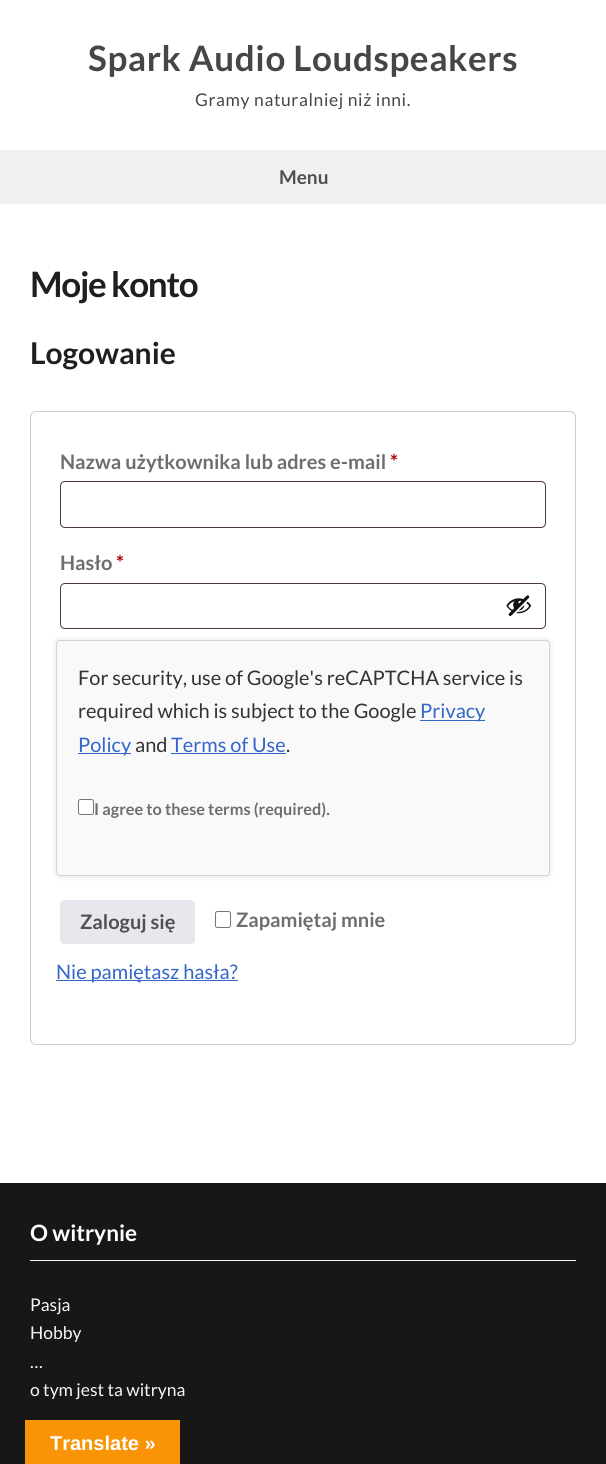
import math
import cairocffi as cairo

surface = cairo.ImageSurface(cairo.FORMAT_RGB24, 606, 1464)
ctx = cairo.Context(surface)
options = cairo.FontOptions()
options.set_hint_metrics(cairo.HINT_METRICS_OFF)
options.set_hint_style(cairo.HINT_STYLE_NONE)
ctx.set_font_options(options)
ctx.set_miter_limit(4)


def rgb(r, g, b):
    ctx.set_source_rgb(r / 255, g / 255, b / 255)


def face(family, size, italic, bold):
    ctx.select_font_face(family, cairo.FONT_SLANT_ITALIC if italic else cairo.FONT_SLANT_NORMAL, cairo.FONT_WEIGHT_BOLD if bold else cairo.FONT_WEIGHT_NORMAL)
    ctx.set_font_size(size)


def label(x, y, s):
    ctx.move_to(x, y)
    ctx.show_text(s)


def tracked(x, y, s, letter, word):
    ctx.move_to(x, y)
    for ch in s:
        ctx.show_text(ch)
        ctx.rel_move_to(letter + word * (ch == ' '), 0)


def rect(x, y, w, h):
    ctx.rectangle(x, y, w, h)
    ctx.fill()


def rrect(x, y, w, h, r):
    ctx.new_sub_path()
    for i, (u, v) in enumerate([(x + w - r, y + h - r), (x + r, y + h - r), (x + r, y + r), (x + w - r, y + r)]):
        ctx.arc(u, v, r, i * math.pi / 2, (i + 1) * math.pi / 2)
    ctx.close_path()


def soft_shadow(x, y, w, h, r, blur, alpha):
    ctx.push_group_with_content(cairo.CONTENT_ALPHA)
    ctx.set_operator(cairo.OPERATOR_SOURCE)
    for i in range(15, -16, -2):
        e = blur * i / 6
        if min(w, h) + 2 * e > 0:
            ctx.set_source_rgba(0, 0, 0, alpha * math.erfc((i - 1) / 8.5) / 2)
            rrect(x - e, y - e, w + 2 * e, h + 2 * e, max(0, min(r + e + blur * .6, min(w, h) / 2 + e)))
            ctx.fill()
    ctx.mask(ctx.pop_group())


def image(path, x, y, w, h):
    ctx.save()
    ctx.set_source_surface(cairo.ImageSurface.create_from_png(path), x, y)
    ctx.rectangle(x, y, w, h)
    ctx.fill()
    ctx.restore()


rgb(255, 255, 255)
ctx.paint()
face('Lato', 35, 0, 1)
rgb(70, 70, 70)
tracked(88, 71, 'Spark Audio Loudspeakers', 0.6, 0)
face('Lato', 17.5, 0, 0)
tracked(195, 106, 'Gramy naturalniej niż inni.', 0.6, 0)
rgb(237, 238, 238)
rect(0, 150, 606, 1)
rgb(239, 240, 240)
rect(0, 151, 606, 53)
face('Lato', 19, 0, 1)
rgb(79, 80, 79)
label(279, 184, 'Menu')
face('Lato', 35, 0, 1)
rgb(31, 31, 31)
tracked(30, 297, 'Moje konto', -1.25, 0)
face('Lato', 30, 0, 1)
label(30, 364, 'Logowanie')
rrect(30.5, 411.5, 545, 633, 5.5)
rgb(207, 200, 216)
ctx.set_line_width(1)
ctx.stroke()
face('Lato', 20, 0, 1)
rgb(110, 110, 110)
label(60, 469, 'Nazwa użytkownika lub adres e-mail')
rgb(170, 0, 0)
label(390, 469, '*')
rrect(60.5, 481.5, 485, 46, 4.5)
rgb(77, 57, 57)
ctx.stroke()
rgb(110, 110, 110)
label(60, 570, 'Hasło')
rgb(170, 0, 0)
label(116, 570, '*')
rrect(60.5, 583.5, 485, 45, 4.5)
rgb(77, 57, 57)
ctx.stroke()
image('image0.png', 506, 595, 26, 21)
rgb(0, 0, 0)
soft_shadow(55, 639, 496, 239, 5, 2.5, 0.08)
rgb(249, 249, 249)
rrect(56.5, 640.5, 493, 235, 3.5)
ctx.fill_preserve()
rgb(211, 211, 211)
ctx.stroke()
face('Lato', 20, 0, 0)
rgb(51, 51, 51)
label(78, 685, 'For security, use of Google\'s reCAPTCHA service is')
label(78, 718, 'required which is subject to the Google')
rgb(51, 102, 200)
rect(420, 720, 65, 1)
label(420, 718, 'Privacy')
rect(78, 753, 53, 1)
label(78, 752, 'Policy')
rgb(51, 51, 51)
label(135, 752, 'and')
rgb(51, 102, 200)
label(171, 752, 'Terms of Use')
rect(171, 753, 115, 1)
rgb(51, 51, 51)
label(286, 752, '.')
rgb(255, 255, 255)
rrect(78.5, 799.5, 15, 15, 2)
ctx.fill_preserve()
rgb(118, 118, 118)
ctx.stroke()
face('Lato', 16.25, 0, 1)
rgb(110, 110, 110)
label(94, 815, 'I agree to these terms (required).')
rgb(233, 230, 237)
rrect(60, 900, 135, 44, 4)
ctx.fill()
face('Lato', 20, 0, 1)
rgb(79, 80, 79)
label(80, 929, 'Zaloguj się')
rrect(215.5, 911.5, 15, 16, 2)
rgb(118, 118, 118)
ctx.stroke()
rgb(110, 110, 110)
label(236, 927, 'Zapamiętaj mnie')
rgb(51, 102, 200)
rect(56, 980, 182, 1)
face('Lato', 20, 0, 0)
label(56, 979, 'Nie pamiętasz hasła?')
rgb(23, 23, 23)
rect(0, 1183, 606, 281)
rgb(246, 246, 246)
rect(30, 1260, 546, 1)
face('Lato', 22.5, 0, 1)
rgb(255, 255, 255)
label(30, 1241, 'O witrynie')
face('Lato', 17.5, 0, 0)
rgb(246, 246, 246)
label(30, 1311, 'Pasja')
label(30, 1339, 'Hobby')
label(30, 1368, '…')
label(30, 1396, 'o tym jest ta witryna')
rgb(248, 148, 6)
rect(25, 1420, 155, 44)
face('Liberation Sans', 20, 0, 1)
rgb(255, 255, 255)
label(50, 1450, 'Translate »')
surface.write_to_png('render.png')
